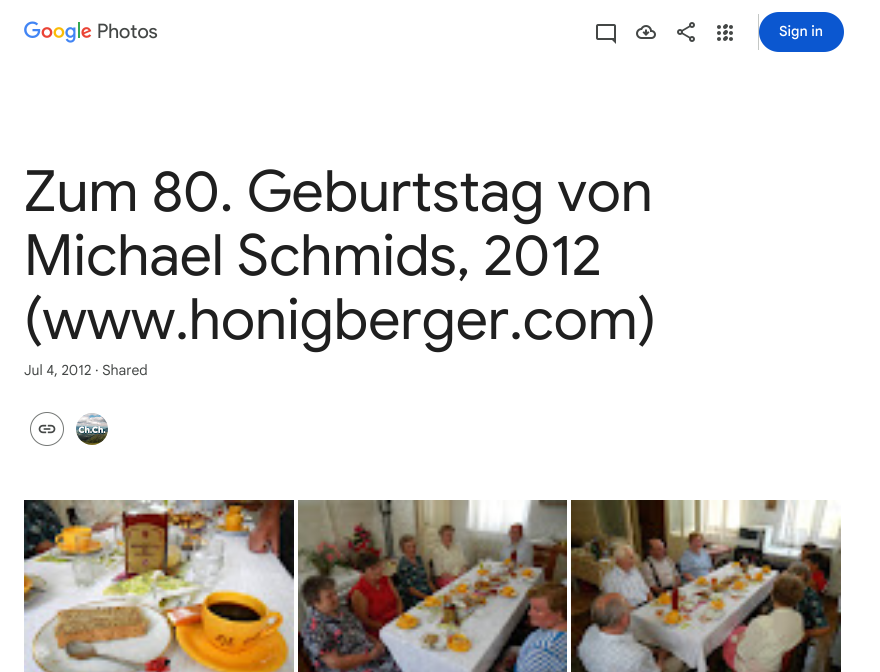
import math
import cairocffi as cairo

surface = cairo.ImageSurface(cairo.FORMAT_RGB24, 880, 672)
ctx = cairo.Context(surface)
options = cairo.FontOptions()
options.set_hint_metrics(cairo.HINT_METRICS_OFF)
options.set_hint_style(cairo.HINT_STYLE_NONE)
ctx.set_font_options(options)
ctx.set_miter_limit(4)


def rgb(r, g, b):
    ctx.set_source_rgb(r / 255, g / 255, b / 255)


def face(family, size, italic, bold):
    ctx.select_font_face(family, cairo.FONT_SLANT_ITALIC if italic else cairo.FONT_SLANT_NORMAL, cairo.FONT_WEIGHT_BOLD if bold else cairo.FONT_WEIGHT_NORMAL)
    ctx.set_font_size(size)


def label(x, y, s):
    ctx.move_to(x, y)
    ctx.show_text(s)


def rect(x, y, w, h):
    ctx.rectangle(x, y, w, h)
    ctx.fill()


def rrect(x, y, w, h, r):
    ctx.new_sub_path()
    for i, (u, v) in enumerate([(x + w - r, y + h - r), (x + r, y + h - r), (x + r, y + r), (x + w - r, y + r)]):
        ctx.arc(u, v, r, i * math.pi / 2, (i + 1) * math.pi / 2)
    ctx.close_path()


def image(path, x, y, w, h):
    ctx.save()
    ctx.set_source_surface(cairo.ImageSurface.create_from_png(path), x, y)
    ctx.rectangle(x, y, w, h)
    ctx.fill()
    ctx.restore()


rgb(255, 255, 255)
ctx.paint()
image('image0.png', 24, 21, 68, 22)
face('Product Sans', 20, 0, 0)
rgb(68, 71, 70)
label(97, 38, 'Photos')
image('image1.png', 596, 24, 20, 20)
image('image2.png', 636, 25, 20, 14)
image('image3.png', 677, 22, 18, 20)
image('image4.png', 724, 24, 4, 16)
rgb(196, 199, 197)
rect(758, 14, 1, 36)
face('Google Sans', 57, 0, 0)
rgb(31, 31, 31)
label(24, 211, 'Zum 80. Geburtstag von')
label(24, 275, 'Michael Schmids, 2012')
label(24, 339, '(www.honigberger.com)')
face('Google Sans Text', 14, 0, 0)
rgb(68, 71, 70)
label(24, 375, 'Jul 4, 2012 · Shared')
ctx.new_path()
ctx.arc(47, 429, 16.5, 0, 2 * math.pi)
rgb(116, 119, 117)
ctx.set_line_width(1)
ctx.stroke()
image('image5.png', 38, 424, 18, 10)
image('image6.png', 76, 413, 32, 32)
image('image7.png', 24, 500, 270, 172)
image('image8.png', 298, 500, 269, 172)
image('image9.png', 571, 500, 270, 172)
image('image10.png', 717, 25, 16, 16)
rgb(11, 87, 208)
rrect(759, 12, 85, 40, 20)
ctx.fill()
face('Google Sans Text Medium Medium', 14, 0, 0)
rgb(255, 255, 255)
label(779, 36, 'Sign in')
surface.write_to_png('render.png')
